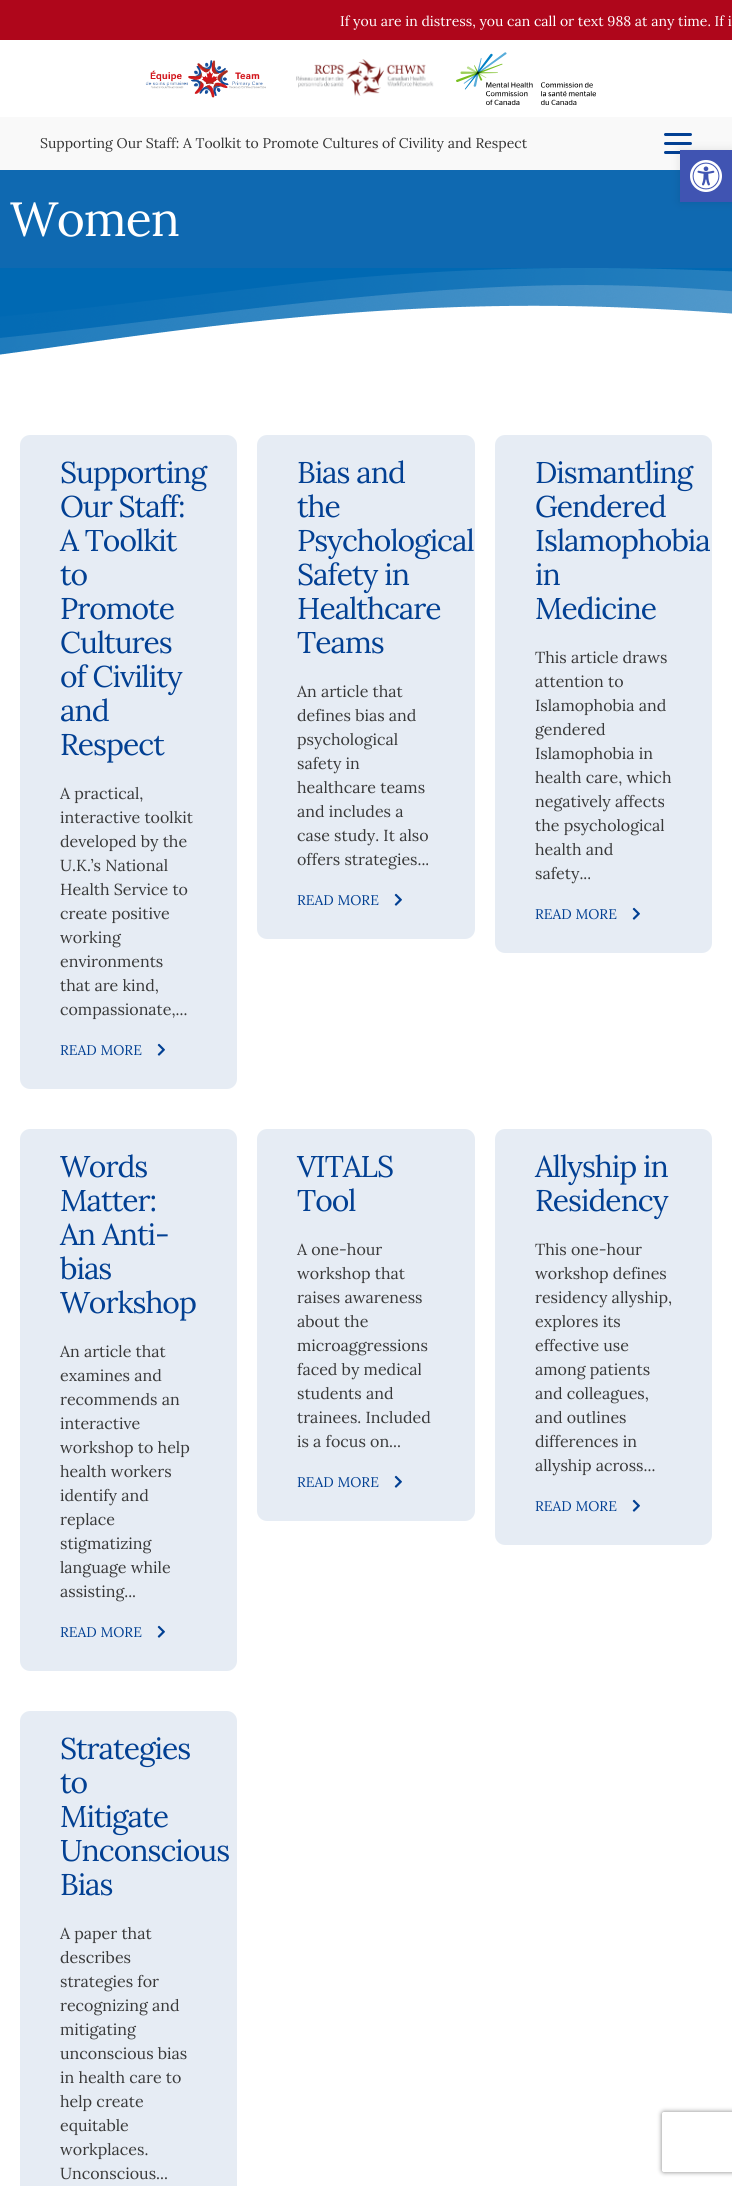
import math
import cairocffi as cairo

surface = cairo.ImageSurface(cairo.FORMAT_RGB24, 732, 2186)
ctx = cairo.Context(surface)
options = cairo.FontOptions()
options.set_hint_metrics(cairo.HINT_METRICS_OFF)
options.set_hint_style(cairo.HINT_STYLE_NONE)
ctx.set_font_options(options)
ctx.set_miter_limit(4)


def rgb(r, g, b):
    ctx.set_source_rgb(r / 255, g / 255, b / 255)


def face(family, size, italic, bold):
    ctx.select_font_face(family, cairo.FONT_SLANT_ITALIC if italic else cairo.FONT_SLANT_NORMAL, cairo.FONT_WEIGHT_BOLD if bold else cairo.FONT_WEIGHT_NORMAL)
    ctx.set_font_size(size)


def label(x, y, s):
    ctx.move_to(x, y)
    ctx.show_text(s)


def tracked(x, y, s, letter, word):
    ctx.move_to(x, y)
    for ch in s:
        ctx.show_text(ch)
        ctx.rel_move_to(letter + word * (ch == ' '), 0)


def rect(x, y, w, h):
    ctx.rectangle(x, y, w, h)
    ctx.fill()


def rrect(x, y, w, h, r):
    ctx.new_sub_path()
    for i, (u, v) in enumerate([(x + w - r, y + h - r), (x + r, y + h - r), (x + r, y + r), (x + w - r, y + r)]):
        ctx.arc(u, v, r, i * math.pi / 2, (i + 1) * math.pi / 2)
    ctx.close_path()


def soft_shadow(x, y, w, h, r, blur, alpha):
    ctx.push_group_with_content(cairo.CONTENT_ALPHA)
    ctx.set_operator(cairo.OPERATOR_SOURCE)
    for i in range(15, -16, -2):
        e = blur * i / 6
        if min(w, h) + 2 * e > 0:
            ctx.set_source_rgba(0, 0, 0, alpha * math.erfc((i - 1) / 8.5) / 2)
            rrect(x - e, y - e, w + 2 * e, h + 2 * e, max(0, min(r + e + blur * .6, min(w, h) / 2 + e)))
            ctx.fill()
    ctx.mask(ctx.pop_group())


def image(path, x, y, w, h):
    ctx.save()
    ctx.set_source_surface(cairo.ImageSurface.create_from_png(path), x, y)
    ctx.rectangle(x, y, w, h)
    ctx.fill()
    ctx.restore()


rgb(255, 255, 255)
ctx.paint()
rgb(175, 6, 27)
rect(0, 0, 732, 40)
face('Lora', 14, 0, 0)
rgb(255, 255, 255)
label(340, 26, 'If you are in distress, you can call or text 988 at any time. If i')
image('image0.png', 145, 60, 121, 38)
image('image1.png', 296, 59, 138, 37)
image('image2.png', 456, 52, 140, 53)
rgb(249, 249, 249)
rect(0, 117, 732, 53)
rgb(51, 51, 51)
label(40, 148, 'Supporting Our Staff: A Toolkit to Promote Cultures of Civility and Respect')
rgb(2, 64, 147)
rrect(664, 133, 28, 3, 1.5)
ctx.fill()
rrect(664, 142, 28, 3, 1.5)
ctx.fill()
rrect(664, 151, 28, 3, 1.5)
ctx.fill()
rgb(15, 105, 177)
rect(0, 170, 732, 98)
face('Lora', 48, 0, 0)
rgb(255, 255, 255)
tracked(10, 236, 'Women', -1, 0)
image('image3.png', 0, 268, 732, 87)
rgb(230, 236, 244)
rrect(20, 435, 217, 654, 10)
ctx.fill()
face('Lora', 30, 0, 0)
rgb(2, 64, 147)
tracked(60, 483, 'Supporting', -1, 0)
tracked(60, 517, 'Our Staff:', -1, 0)
tracked(60, 551, 'A Toolkit', -1, 0)
tracked(60, 585, 'to', -1, 0)
tracked(60, 619, 'Promote', -1, 0)
tracked(60, 653, 'Cultures', -1, 0)
tracked(60, 687, 'of Civility', -1, 0)
tracked(60, 721, 'and', -1, 0)
tracked(60, 755, 'Respect', -1, 0)
face('Lora', 16, 0, 0)
rgb(57, 57, 57)
label(60, 799, 'A practical,')
label(60, 823, 'interactive toolkit')
label(60, 847, 'developed by the')
label(60, 871, 'U.K.’s National')
label(60, 895, 'Health Service to')
label(60, 919, 'create positive')
label(60, 943, 'working')
label(60, 967, 'environments')
label(60, 991, 'that are kind,')
label(60, 1015, 'compassionate,...')
face('Lora', 14, 0, 0)
rgb(2, 64, 147)
label(60, 1055, 'READ MORE')
image('image4.png', 157, 1043, 8, 13)
rgb(230, 236, 244)
rrect(257, 435, 218, 504, 10)
ctx.fill()
face('Lora', 30, 0, 0)
rgb(2, 64, 147)
tracked(297, 483, 'Bias and', -1, 0)
tracked(297, 517, 'the', -1, 0)
tracked(297, 551, 'Psychological', -1, 0)
tracked(297, 585, 'Safety in', -1, 0)
tracked(297, 619, 'Healthcare', -1, 0)
tracked(297, 653, 'Teams', -1, 0)
face('Lora', 16, 0, 0)
rgb(57, 57, 57)
label(297, 697, 'An article that')
label(297, 721, 'defines bias and')
label(297, 745, 'psychological')
label(297, 769, 'safety in')
label(297, 793, 'healthcare teams')
label(297, 817, 'and includes a')
label(297, 841, 'case study. It also')
label(297, 865, 'offers strategies...')
face('Lora', 14, 0, 0)
rgb(2, 64, 147)
label(297, 905, 'READ MORE')
image('image4.png', 394, 893, 8, 13)
rgb(230, 236, 244)
rrect(495, 435, 217, 518, 10)
ctx.fill()
face('Lora', 30, 0, 0)
rgb(2, 64, 147)
tracked(535, 483, 'Dismantling', -1, 0)
tracked(535, 517, 'Gendered', -1, 0)
tracked(535, 551, 'Islamophobia', -1, 0)
tracked(535, 585, 'in', -1, 0)
tracked(535, 619, 'Medicine', -1, 0)
face('Lora', 16, 0, 0)
rgb(57, 57, 57)
label(535, 663, 'This article draws')
label(535, 687, 'attention to')
label(535, 711, 'Islamophobia and')
label(535, 735, 'gendered')
label(535, 759, 'Islamophobia in')
label(535, 783, 'health care, which')
label(535, 807, 'negatively affects')
label(535, 831, 'the psychological')
label(535, 855, 'health and')
label(535, 879, 'safety...')
face('Lora', 14, 0, 0)
rgb(2, 64, 147)
label(535, 919, 'READ MORE')
image('image4.png', 632, 907, 8, 13)
rgb(230, 236, 244)
rrect(20, 1129, 217, 542, 10)
ctx.fill()
face('Lora', 30, 0, 0)
rgb(2, 64, 147)
tracked(60, 1177, 'Words', -1, 0)
tracked(60, 1211, 'Matter:', -1, 0)
tracked(60, 1245, 'An Anti-', -1, 0)
tracked(60, 1279, 'bias', -1, 0)
tracked(60, 1313, 'Workshop', -1, 0)
face('Lora', 16, 0, 0)
rgb(57, 57, 57)
label(60, 1357, 'An article that')
label(60, 1381, 'examines and')
label(60, 1405, 'recommends an')
label(60, 1429, 'interactive')
label(60, 1453, 'workshop to help')
label(60, 1477, 'health workers')
label(60, 1501, 'identify and')
label(60, 1525, 'replace')
label(60, 1549, 'stigmatizing')
label(60, 1573, 'language while')
label(60, 1597, 'assisting...')
face('Lora', 14, 0, 0)
rgb(2, 64, 147)
label(60, 1637, 'READ MORE')
image('image4.png', 157, 1625, 8, 13)
rgb(230, 236, 244)
rrect(257, 1129, 218, 392, 10)
ctx.fill()
face('Lora', 30, 0, 0)
rgb(2, 64, 147)
tracked(297, 1177, 'VITALS', -1, 0)
tracked(297, 1211, 'Tool', -1, 0)
face('Lora', 16, 0, 0)
rgb(57, 57, 57)
label(297, 1255, 'A one-hour')
label(297, 1279, 'workshop that')
label(297, 1303, 'raises awareness')
label(297, 1327, 'about the')
label(297, 1351, 'microaggressions')
label(297, 1375, 'faced by medical')
label(297, 1399, 'students and')
label(297, 1423, 'trainees. Included')
label(297, 1447, 'is a focus on...')
face('Lora', 14, 0, 0)
rgb(2, 64, 147)
label(297, 1487, 'READ MORE')
image('image4.png', 394, 1475, 8, 13)
rgb(230, 236, 244)
rrect(495, 1129, 217, 416, 10)
ctx.fill()
face('Lora', 30, 0, 0)
rgb(2, 64, 147)
tracked(535, 1177, 'Allyship in', -1, 0)
tracked(535, 1211, 'Residency', -1, 0)
face('Lora', 16, 0, 0)
rgb(57, 57, 57)
label(535, 1255, 'This one-hour')
label(535, 1279, 'workshop defines')
label(535, 1303, 'residency allyship,')
label(535, 1327, 'explores its')
label(535, 1351, 'effective use')
label(535, 1375, 'among patients')
label(535, 1399, 'and colleagues,')
label(535, 1423, 'and outlines')
label(535, 1447, 'differences in')
label(535, 1471, 'allyship across...')
face('Lora', 14, 0, 0)
rgb(2, 64, 147)
label(535, 1511, 'READ MORE')
image('image4.png', 632, 1499, 8, 13)
rgb(230, 236, 244)
rrect(20, 1711, 217, 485, 10)
ctx.fill()
face('Lora', 30, 0, 0)
rgb(2, 64, 147)
tracked(60, 1759, 'Strategies', -1, 0)
tracked(60, 1793, 'to', -1, 0)
tracked(60, 1827, 'Mitigate', -1, 0)
tracked(60, 1861, 'Unconscious', -1, 0)
tracked(60, 1895, 'Bias', -1, 0)
face('Lora', 16, 0, 0)
rgb(57, 57, 57)
label(60, 1939, 'A paper that')
label(60, 1963, 'describes')
label(60, 1987, 'strategies for')
label(60, 2011, 'recognizing and')
label(60, 2035, 'mitigating')
label(60, 2059, 'unconscious bias')
label(60, 2083, 'in health care to')
label(60, 2107, 'help create')
label(60, 2131, 'equitable')
label(60, 2155, 'workplaces.')
label(60, 2179, 'Unconscious...')
rgb(0, 0, 0)
soft_shadow(680, 150, 52, 52, 0, 5, 0.1)
rgb(64, 84, 178)
rect(680, 150, 52, 52)
image('image5.png', 690, 160, 32, 32)
ctx.save()
ctx.set_fill_rule(cairo.FILL_RULE_EVEN_ODD)
ctx.new_path()
ctx.move_to(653, 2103)
ctx.line_to(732, 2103)
ctx.line_to(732, 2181)
ctx.line_to(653, 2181)
ctx.close_path()
ctx.move_to(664, 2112)
ctx.line_to(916, 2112)
ctx.curve_to(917, 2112, 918, 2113, 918, 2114)
ctx.line_to(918, 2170)
ctx.curve_to(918, 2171, 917, 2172, 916, 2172)
ctx.line_to(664, 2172)
ctx.curve_to(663, 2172, 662, 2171, 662, 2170)
ctx.line_to(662, 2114)
ctx.curve_to(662, 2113, 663, 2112, 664, 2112)
ctx.close_path()
ctx.clip()
rgb(128, 128, 128)
soft_shadow(662, 2112, 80, 60, 2, 2.5, 1)
ctx.restore()
surface.write_to_png('render.png')
